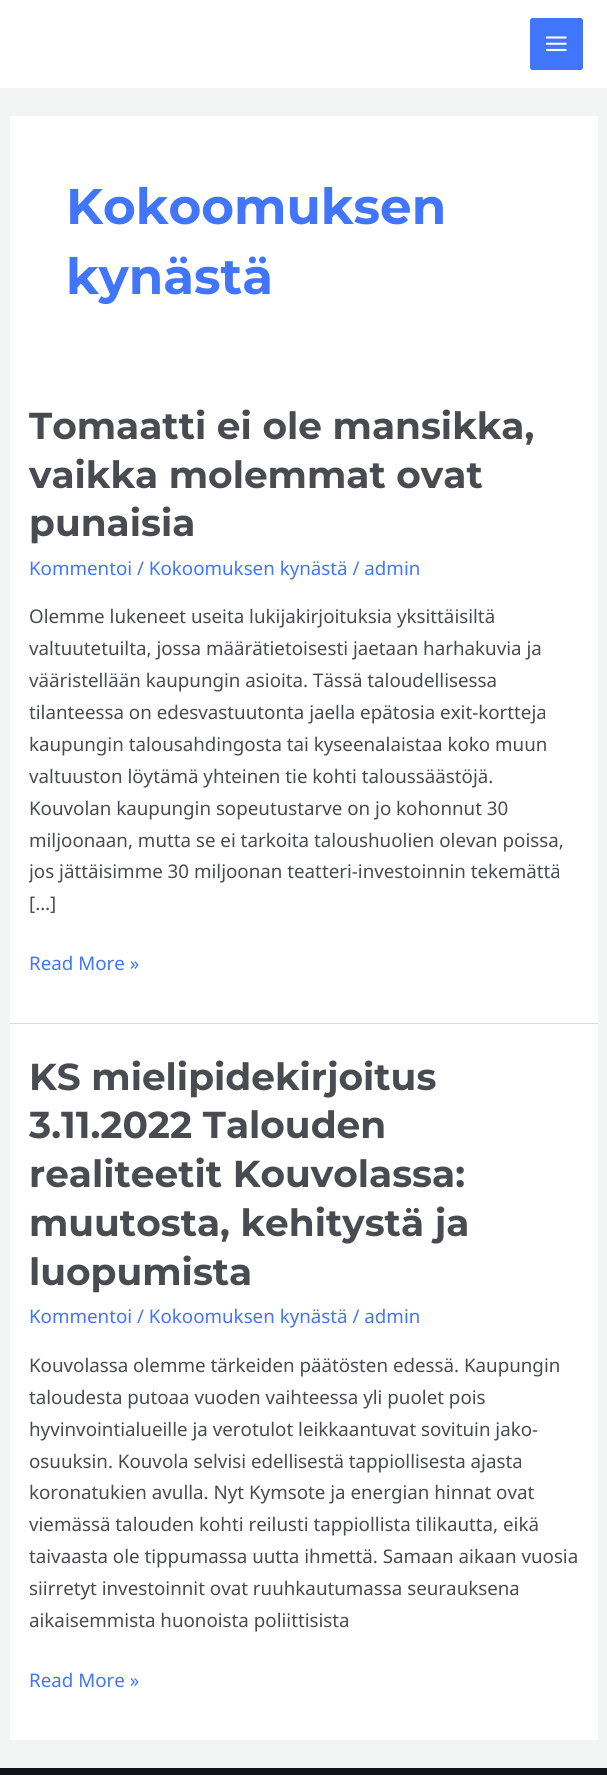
import math
import cairocffi as cairo

surface = cairo.ImageSurface(cairo.FORMAT_RGB24, 607, 1775)
ctx = cairo.Context(surface)
options = cairo.FontOptions()
options.set_hint_metrics(cairo.HINT_METRICS_OFF)
options.set_hint_style(cairo.HINT_STYLE_NONE)
ctx.set_font_options(options)
ctx.set_miter_limit(4)


def rgb(r, g, b):
    ctx.set_source_rgb(r / 255, g / 255, b / 255)


def face(family, size, italic, bold):
    ctx.select_font_face(family, cairo.FONT_SLANT_ITALIC if italic else cairo.FONT_SLANT_NORMAL, cairo.FONT_WEIGHT_BOLD if bold else cairo.FONT_WEIGHT_NORMAL)
    ctx.set_font_size(size)


def label(x, y, s):
    ctx.move_to(x, y)
    ctx.show_text(s)


def rect(x, y, w, h):
    ctx.rectangle(x, y, w, h)
    ctx.fill()


def rrect(x, y, w, h, r):
    ctx.new_sub_path()
    for i, (u, v) in enumerate([(x + w - r, y + h - r), (x + r, y + h - r), (x + r, y + r), (x + w - r, y + r)]):
        ctx.arc(u, v, r, i * math.pi / 2, (i + 1) * math.pi / 2)
    ctx.close_path()


def image(path, x, y, w, h):
    ctx.save()
    ctx.set_source_surface(cairo.ImageSurface.create_from_png(path), x, y)
    ctx.rectangle(x, y, w, h)
    ctx.fill()
    ctx.restore()


rgb(243, 245, 245)
ctx.paint()
rgb(255, 255, 255)
rect(0, 0, 607, 88)
rgb(65, 117, 252)
rrect(530, 18, 53, 52, 2.5)
ctx.fill()
image('image0.png', 545, 36, 22, 16)
rgb(255, 255, 255)
rect(10, 116, 588, 907)
face('Montserrat Thin', 50, 0, 0)
rgb(65, 117, 252)
label(66, 224, 'Kokoomuksen')
label(66, 294, 'kynästä')
rgb(221, 221, 221)
rect(10, 1023, 588, 1)
face('Montserrat Thin', 37.5, 0, 0)
rgb(73, 75, 81)
label(29, 439, 'Tomaatti ei ole mansikka,')
label(29, 488, 'vaikka molemmat ovat')
label(29, 536, 'punaisia')
face('Noto Sans', 18.75, 0, 0)
rgb(65, 117, 252)
label(29, 575, 'Kommentoi / Kokoomuksen kynästä / admin')
rgb(73, 75, 81)
label(29, 623, 'Olemme lukeneet useita lukijakirjoituksia yksittäisiltä')
label(29, 655, 'valtuutetuilta, jossa määrätietoisesti jaetaan harhakuvia ja')
label(29, 687, 'vääristellään kaupungin asioita. Tässä taloudellisessa')
label(29, 719, 'tilanteessa on edesvastuutonta jaella epätosia exit-kortteja')
label(29, 751, 'kaupungin talousahdingosta tai kyseenalaistaa koko muun')
label(29, 783, 'valtuuston löytämä yhteinen tie kohti taloussäästöjä.')
label(29, 815, 'Kouvolan kaupungin sopeutustarve on jo kohonnut 30')
label(29, 847, 'miljoonaan, mutta se ei tarkoita taloushuolien olevan poissa,')
ctx.save()
ctx.rectangle(29, 401, 550, 594)
ctx.clip()
label(29, 878, 'jos jättäisimme 30 miljoonan teatteri-investoinnin tekemättä')
ctx.restore()
label(29, 910, '[…]')
rgb(65, 117, 252)
label(29, 970, 'Read More »')
rgb(255, 255, 255)
rect(10, 1024, 588, 716)
face('Montserrat Thin', 37.5, 0, 0)
rgb(73, 75, 81)
label(29, 1090, 'KS mielipidekirjoitus')
label(29, 1138, '3.11.2022 Talouden')
label(29, 1187, 'realiteetit Kouvolassa:')
label(29, 1236, 'muutosta, kehitystä ja')
label(29, 1285, 'luopumista')
face('Noto Sans', 18.75, 0, 0)
rgb(65, 117, 252)
label(29, 1323, 'Kommentoi / Kokoomuksen kynästä / admin')
rgb(73, 75, 81)
label(29, 1372, 'Kouvolassa olemme tärkeiden päätösten edessä. Kaupungin')
label(29, 1404, 'taloudesta putoaa vuoden vaihteessa yli puolet pois')
label(29, 1436, 'hyvinvointialueille ja verotulot leikkaantuvat sovituin jako-')
label(29, 1468, 'osuuksin. Kouvola selvisi edellisestä tappiollisesta ajasta')
label(29, 1499, 'koronatukien avulla. Nyt Kymsote ja energian hinnat ovat')
label(29, 1531, 'viemässä talouden kohti reilusti tappiollista tilikautta, eikä')
label(29, 1563, 'taivaasta ole tippumassa uutta ihmettä. Samaan aikaan vuosia')
label(29, 1595, 'siirretyt investoinnit ovat ruuhkautumassa seurauksena')
label(29, 1627, 'aikaisemmista huonoista poliittisista')
rgb(65, 117, 252)
label(29, 1687, 'Read More »')
rgb(16, 18, 24)
rect(0, 1768, 607, 7)
surface.write_to_png('render.png')
